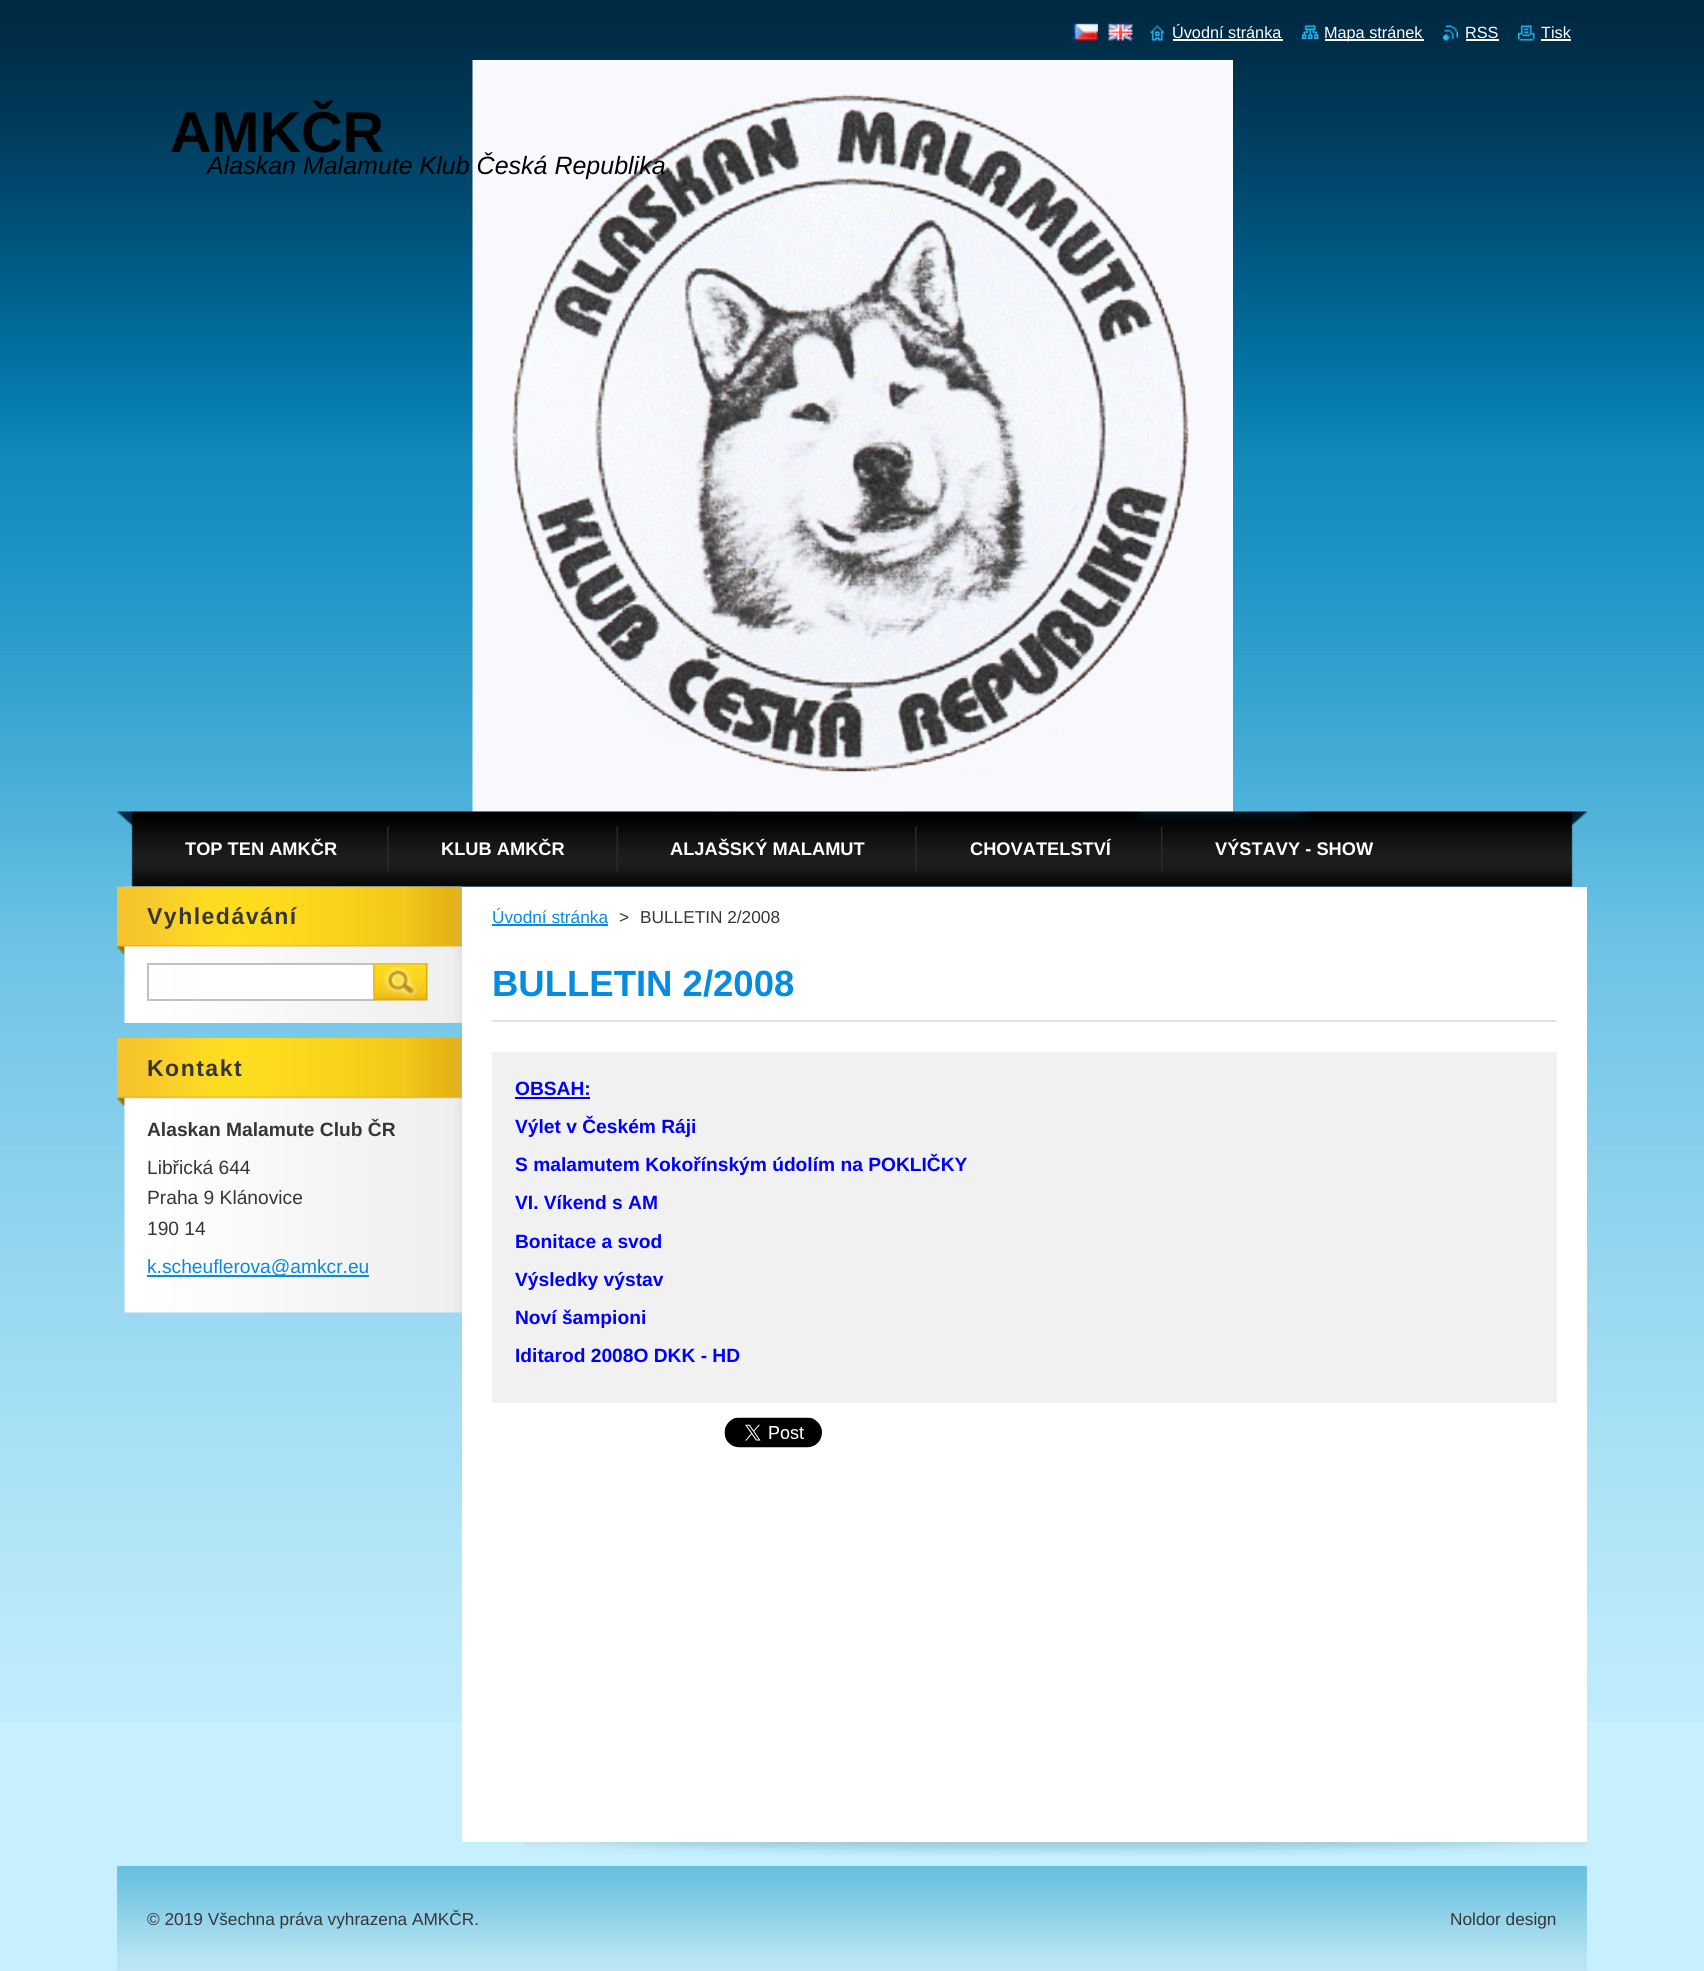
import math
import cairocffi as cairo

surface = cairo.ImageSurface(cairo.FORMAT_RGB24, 1704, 1971)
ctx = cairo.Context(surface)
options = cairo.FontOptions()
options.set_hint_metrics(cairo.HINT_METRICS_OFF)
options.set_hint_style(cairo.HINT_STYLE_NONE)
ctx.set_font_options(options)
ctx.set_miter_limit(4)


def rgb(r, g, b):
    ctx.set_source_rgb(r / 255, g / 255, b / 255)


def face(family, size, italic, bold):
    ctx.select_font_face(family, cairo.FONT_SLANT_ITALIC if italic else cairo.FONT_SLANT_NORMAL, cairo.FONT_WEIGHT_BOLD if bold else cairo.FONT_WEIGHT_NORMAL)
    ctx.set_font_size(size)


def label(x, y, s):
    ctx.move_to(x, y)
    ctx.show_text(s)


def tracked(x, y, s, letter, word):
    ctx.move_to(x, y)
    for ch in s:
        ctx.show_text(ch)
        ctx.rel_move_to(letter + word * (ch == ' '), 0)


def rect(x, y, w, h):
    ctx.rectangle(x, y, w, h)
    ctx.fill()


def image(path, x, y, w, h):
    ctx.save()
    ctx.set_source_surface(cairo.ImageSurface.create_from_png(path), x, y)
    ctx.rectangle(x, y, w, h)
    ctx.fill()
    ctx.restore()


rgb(198, 240, 254)
ctx.paint()
image('image0.png', 0, 0, 1704, 1722)
image('image1.png', 1074, 23, 24, 18)
image('image2.png', 1108, 23, 25, 18)
image('image3.png', 1150, 25, 14, 16)
face('Liberation Sans', 16.25, 0, 0)
rgb(255, 255, 255)
label(1172, 38, 'Úvodní stránka')
rect(1173, 39, 110, 2)
image('image4.png', 1302, 25, 17, 14)
rect(1325, 39, 99, 2)
label(1324, 38, 'Mapa stránek')
image('image5.png', 1443, 25, 15, 16)
label(1465, 38, 'RSS')
rect(1466, 39, 33, 2)
image('image6.png', 1518, 25, 17, 16)
label(1541, 38, 'Tisk')
rect(1541, 39, 30, 2)
face('Liberation Sans', 57.5, 0, 1)
rgb(0, 0, 0)
label(170, 152, 'AMKČR')
image('image8.png', 117, 811, 1470, 76)
image('image7.png', 472, 60, 761, 752)
face('Liberation Sans', 25, 1, 0)
label(207, 174, 'Alaskan Malamute Klub Česká Republika')
image('image9.png', 387, 826, 2, 46)
face('Liberation Sans', 18.25, 0, 1)
rgb(255, 255, 255)
label(185, 855, 'TOP TEN AMKČR')
image('image10.png', 616, 826, 2, 46)
label(441, 855, 'KLUB AMKČR')
image('image9.png', 915, 826, 2, 46)
label(670, 855, 'ALJAŠSKÝ MALAMUT')
image('image9.png', 1161, 826, 2, 46)
label(970, 855, 'CHOVATELSTVÍ')
label(1215, 855, 'VÝSTAVY - SHOW')
image('image11.png', 124, 886, 338, 137)
image('image12.png', 117, 886, 345, 70)
face('Liberation Sans', 23, 0, 1)
rgb(54, 54, 54)
tracked(147, 924, 'Vyhledávání', 1.5, 0)
rgb(255, 255, 255)
rect(194, 965, 179, 34)
ctx.rectangle(148, 964, 226, 36)
rgb(193, 193, 193)
ctx.stroke()
image('image13.png', 373, 963, 55, 38)
image('image14.png', 124, 1098, 338, 215)
image('image15.png', 117, 1038, 345, 69)
rgb(54, 54, 54)
tracked(147, 1076, 'Kontakt', 1.5, 0)
face('Liberation Sans', 19.2, 0, 1)
label(147, 1136, 'Alaskan Malamute Club ČR')
face('Liberation Sans', 19.2, 0, 0)
label(147, 1174, 'Libřická 644')
label(147, 1204, 'Praha 9 Klánovice')
label(147, 1235, '190 14')
rgb(5, 140, 225)
rect(147, 1275, 222, 2)
label(147, 1273, 'k.scheuflerova@amkcr.eu')
image('image16.png', 522, 1842, 1065, 14)
rgb(255, 255, 255)
rect(462, 887, 1125, 955)
face('Liberation Sans', 17.25, 0, 0)
rgb(5, 140, 225)
label(492, 923, 'Úvodní stránka')
rect(492, 924, 116, 2)
rgb(54, 54, 54)
label(619, 923, '>')
label(640, 923, 'BULLETIN 2/2008')
rgb(225, 225, 225)
rect(492, 1020, 1065, 2)
face('Liberation Sans', 36.5, 0, 1)
rgb(5, 140, 225)
label(492, 996, 'BULLETIN 2/2008')
rgb(241, 241, 241)
rect(492, 1052, 1065, 351)
face('Liberation Sans', 19.2, 0, 1)
rgb(0, 0, 255)
label(515, 1095, 'OBSAH:')
rect(515, 1097, 75, 2)
label(515, 1133, 'Výlet v Českém Ráji')
label(515, 1171, 'S malamutem Kokořínským údolím na POKLIČKY')
label(515, 1209, 'VI. Víkend s AM')
label(515, 1248, 'Bonitace a svod')
label(515, 1286, 'Výsledky výstav')
label(515, 1324, 'Noví šampioni')
label(515, 1362, 'Iditarod 2008O DKK - HD')
image('image17.png', 724, 1417, 98, 31)
image('image18.png', 117, 1866, 1470, 105)
face('Liberation Sans', 17.25, 0, 0)
rgb(54, 54, 54)
label(147, 1925, '© 2019 Všechna práva vyhrazena AMKČR.')
label(1450, 1925, 'Noldor design')
surface.write_to_png('render.png')
